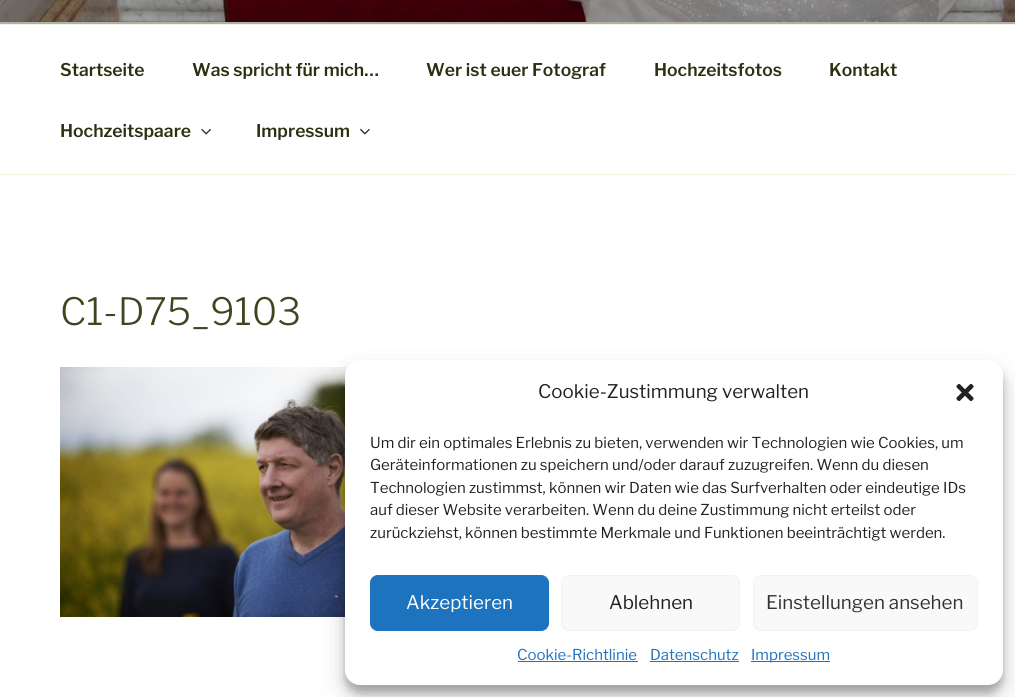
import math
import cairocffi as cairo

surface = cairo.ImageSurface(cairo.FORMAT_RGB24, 1015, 697)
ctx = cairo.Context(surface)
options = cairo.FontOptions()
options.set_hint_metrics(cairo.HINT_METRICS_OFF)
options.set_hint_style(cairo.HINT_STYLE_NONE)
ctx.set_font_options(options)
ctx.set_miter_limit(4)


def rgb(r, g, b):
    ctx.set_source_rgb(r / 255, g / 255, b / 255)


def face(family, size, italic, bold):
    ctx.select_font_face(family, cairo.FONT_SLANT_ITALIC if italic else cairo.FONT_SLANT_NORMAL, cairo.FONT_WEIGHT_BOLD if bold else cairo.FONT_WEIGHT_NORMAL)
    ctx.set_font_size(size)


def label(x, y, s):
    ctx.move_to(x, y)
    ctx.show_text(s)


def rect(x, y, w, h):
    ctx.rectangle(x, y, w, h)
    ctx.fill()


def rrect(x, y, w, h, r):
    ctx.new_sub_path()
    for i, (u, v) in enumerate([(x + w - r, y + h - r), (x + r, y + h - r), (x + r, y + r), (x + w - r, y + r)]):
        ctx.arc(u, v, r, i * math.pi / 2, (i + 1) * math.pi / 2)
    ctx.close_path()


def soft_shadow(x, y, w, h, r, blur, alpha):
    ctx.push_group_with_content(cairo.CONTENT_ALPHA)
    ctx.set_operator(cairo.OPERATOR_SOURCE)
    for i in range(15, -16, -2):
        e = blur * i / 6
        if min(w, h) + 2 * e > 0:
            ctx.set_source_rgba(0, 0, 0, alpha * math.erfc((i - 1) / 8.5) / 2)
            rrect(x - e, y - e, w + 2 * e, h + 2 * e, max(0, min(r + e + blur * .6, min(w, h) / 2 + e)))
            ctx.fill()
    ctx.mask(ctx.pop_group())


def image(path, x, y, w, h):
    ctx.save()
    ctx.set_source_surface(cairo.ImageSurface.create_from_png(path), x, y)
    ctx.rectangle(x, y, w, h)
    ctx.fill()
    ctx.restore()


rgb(255, 255, 255)
ctx.paint()
rgb(251, 252, 247)
rect(0, 22, 1015, 2)
image('image0.png', 0, 0, 1015, 22)
gradient = cairo.LinearGradient(508, -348, 508, 24)
gradient.add_color_stop_rgba(0, 0, 0, 0, 0)
gradient.add_color_stop_rgba(0.75, 0, 0, 0, 0.3)
gradient.add_color_stop_rgba(1, 0, 0, 0, 0.3)
ctx.set_source(gradient)
rect(0, 0, 1015, 24)
rgb(241, 246, 228)
rect(0, 24, 1015, 1)
rect(0, 174, 1015, 1)
face('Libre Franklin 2 Thin', 17.5, 0, 0)
rgb(40, 50, 17)
label(60, 76, 'Startseite')
label(192, 76, 'Was spricht für mich…')
label(426, 76, 'Wer ist euer Fotograf')
label(654, 76, 'Hochzeitsfotos')
label(829, 76, 'Kontakt')
label(60, 137, 'Hochzeitspaare')
image('image1.png', 201, 128, 10, 7)
label(256, 137, 'Impressum')
image('image2.png', 360, 128, 10, 7)
face('Libre Franklin Thin', 37.5, 0, 0)
rgb(60, 71, 31)
label(60, 325, 'C1-D75_9103')
image('image3.png', 60, 367, 288, 250)
rgb(0, 0, 0)
soft_shadow(345, 368, 658, 325, 15, 4, 0.23)
soft_shadow(345, 373, 658, 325, 15, 12.5, 0.19)
rgb(255, 255, 255)
rrect(345, 360, 658, 325, 15)
ctx.fill()
face('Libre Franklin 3 Thin', 18.75, 0, 0)
rgb(34, 34, 34)
label(538, 398, 'Cookie-Zustimmung verwalten')
image('image4.png', 956, 383, 18, 18)
face('Libre Franklin 3 Thin', 15, 0, 0)
label(370, 448, 'Um dir ein optimales Erlebnis zu bieten, verwenden wir Technologien wie Cookies, um')
label(370, 470, 'Geräteinformationen zu speichern und/oder darauf zuzugreifen. Wenn du diesen')
label(370, 493, 'Technologien zustimmst, können wir Daten wie das Surfverhalten oder eindeutige IDs')
label(370, 515, 'auf dieser Website verarbeiten. Wenn du deine Zustimmung nicht erteilst oder')
label(370, 538, 'zurückziehst, können bestimmte Merkmale und Funktionen beeinträchtigt werden.')
rgb(30, 115, 190)
rrect(370.5, 575.5, 178, 55, 7.5)
ctx.fill_preserve()
ctx.set_line_width(1)
ctx.stroke()
face('Libre Franklin 3 Thin', 18.75, 0, 0)
rgb(255, 255, 255)
label(406, 609, 'Akzeptieren')
rgb(249, 249, 249)
rrect(561.5, 575.5, 178, 55, 7.5)
ctx.fill_preserve()
rgb(242, 242, 242)
ctx.stroke()
rgb(34, 34, 34)
label(609, 609, 'Ablehnen')
rgb(249, 249, 249)
rrect(753.5, 575.5, 224, 55, 7.5)
ctx.fill_preserve()
rgb(242, 242, 242)
ctx.stroke()
rgb(51, 51, 51)
label(766, 609, 'Einstellungen ansehen')
face('Libre Franklin 3 Thin', 15, 0, 0)
rgb(30, 115, 190)
label(517, 660, 'Cookie-Richtlinie')
rect(518, 661, 120, 1)
label(650, 660, 'Datenschutz')
rect(650, 661, 89, 1)
rect(751, 661, 79, 1)
label(751, 660, 'Impressum')
surface.write_to_png('render.png')
